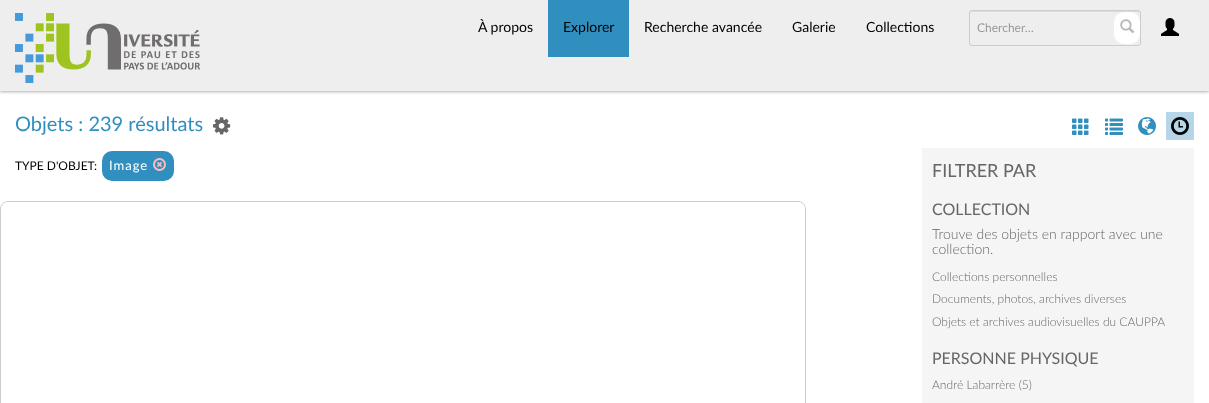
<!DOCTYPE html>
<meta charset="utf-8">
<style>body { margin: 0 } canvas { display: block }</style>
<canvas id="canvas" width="1209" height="403"></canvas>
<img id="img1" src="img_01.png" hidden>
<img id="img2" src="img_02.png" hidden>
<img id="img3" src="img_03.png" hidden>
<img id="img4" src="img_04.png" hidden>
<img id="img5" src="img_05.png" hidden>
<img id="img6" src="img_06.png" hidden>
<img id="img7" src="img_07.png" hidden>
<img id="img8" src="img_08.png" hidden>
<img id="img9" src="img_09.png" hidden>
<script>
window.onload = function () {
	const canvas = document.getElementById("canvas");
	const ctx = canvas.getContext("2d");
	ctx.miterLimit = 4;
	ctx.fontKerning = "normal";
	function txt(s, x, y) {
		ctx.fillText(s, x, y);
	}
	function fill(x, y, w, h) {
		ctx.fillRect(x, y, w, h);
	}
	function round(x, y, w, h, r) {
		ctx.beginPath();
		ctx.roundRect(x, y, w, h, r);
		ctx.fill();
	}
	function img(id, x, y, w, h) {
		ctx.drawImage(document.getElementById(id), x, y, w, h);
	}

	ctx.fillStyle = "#FFFFFF";
	fill(0, 0, 1209, 403);
	ctx.fillStyle = "rgba(0, 0, 0, 0.3)";
	ctx.filter = "blur(1.5px)";
	ctx.beginPath();
	ctx.rect(0, 1, 1209, 91);
	ctx.fill();
	ctx.filter = "none";
	ctx.fillStyle = "#EEEEEE";
	fill(0, 0, 1209, 91);
	img("img1", 15, 13, 185, 70);
	ctx.fillStyle = "#318FBF";
	fill(548, 0, 81, 57);
	ctx.fillStyle = "#DCDCDC";
	ctx.beginPath();
	ctx.moveTo(972, 12);
	ctx.lineTo(1138, 12);
	ctx.bezierCurveTo(1139, 12, 1140, 13, 1140, 14);
	ctx.bezierCurveTo(1140, 13, 1140, 11, 1138, 11);
	ctx.lineTo(972, 11);
	ctx.bezierCurveTo(970, 11, 970, 13, 970, 14);
	ctx.bezierCurveTo(970, 13, 971, 12, 972, 12);
	ctx.closePath();
	ctx.fill();
	ctx.beginPath();
	ctx.roundRect(969.5, 10.5, 171, 35, 2.5);
	ctx.strokeStyle = "#CCCCCC";
	ctx.stroke();
	ctx.fillStyle = "#FFFFFF";
	round(1114, 12, 26, 32, 10);
	img("img2", 1120, 19, 15, 15);
	img("img3", 1161, 18, 18, 18);
	img("img4", 213, 117, 18, 18);
	ctx.fillStyle = "#318FBF";
	round(102, 151, 72, 30, 10);
	img("img5", 153, 158, 13, 13);
	ctx.beginPath();
	ctx.roundRect(0.5, 201.5, 805, 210, 7.5);
	ctx.stroke();
	ctx.fillStyle = "rgba(255, 255, 255, 0.8)";
	round(1, 202, 804, 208, 7);
	img("img6", 1072, 118, 17, 17);
	img("img7", 1105, 118, 18, 17);
	img("img8", 1138, 117, 18, 18);
	ctx.fillStyle = "#B4D6E8";
	fill(1166, 112, 28, 28);
	img("img9", 1171, 117, 18, 18);
	ctx.fillStyle = "#F5F5F5";
	fill(922, 148, 272, 255);
	ctx.font = "14px Lato";
	ctx.fillStyle = "#000000";
	txt("À propos", 478, 32);
	txt("Explorer", 563, 32);
	txt("Recherche avancée", 644, 32);
	txt("Galerie", 792, 32);
	txt("Collections", 866, 32);
	ctx.font = "12px Lato";
	ctx.fillStyle = "#999999";
	txt("Chercher…", 977, 32);
	ctx.font = "20px Lato";
	ctx.fillStyle = "#318FBF";
	txt("Objets : 239 résultats", 15, 131);
	ctx.font = "12px Lato";
	ctx.fillStyle = "#000000";
	txt("TYPE D'OBJET:", 15, 170);
	ctx.letterSpacing = "1px";
	ctx.font = "13px Lato";
	ctx.fillStyle = "#FFFFFF";
	txt("Image", 109, 170);
	ctx.letterSpacing = "0px";
	ctx.font = "18px Lato";
	ctx.fillStyle = "#666666";
	txt("FILTRER PAR", 932, 177);
	ctx.font = "16px Lato";
	txt("COLLECTION", 932, 215);
	ctx.font = "300 14px Lato";
	txt("Trouve des objets en rapport avec une", 932, 239);
	txt("collection.", 932, 254);
	ctx.font = "300 12px Lato";
	txt("Collections personnelles", 932, 281);
	txt("Documents, photos, archives diverses", 932, 303);
	txt("Objets et archives audiovisuelles du CAUPPA", 932, 326);
	ctx.font = "16px Lato";
	txt("PERSONNE PHYSIQUE", 932, 364);
	ctx.font = "300 12px Lato";
	txt("André Labarrère (5)", 932, 389);
};
</script>
